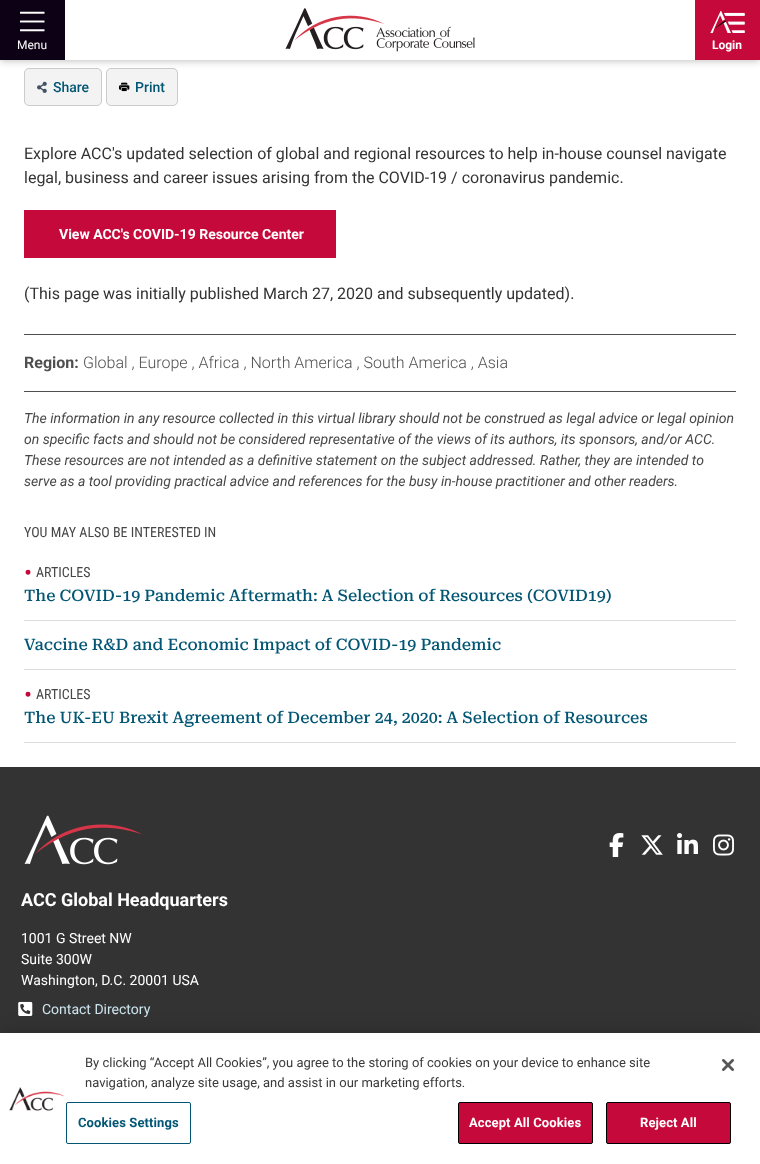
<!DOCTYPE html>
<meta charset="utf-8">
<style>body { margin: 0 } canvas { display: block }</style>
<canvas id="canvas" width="760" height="1164"></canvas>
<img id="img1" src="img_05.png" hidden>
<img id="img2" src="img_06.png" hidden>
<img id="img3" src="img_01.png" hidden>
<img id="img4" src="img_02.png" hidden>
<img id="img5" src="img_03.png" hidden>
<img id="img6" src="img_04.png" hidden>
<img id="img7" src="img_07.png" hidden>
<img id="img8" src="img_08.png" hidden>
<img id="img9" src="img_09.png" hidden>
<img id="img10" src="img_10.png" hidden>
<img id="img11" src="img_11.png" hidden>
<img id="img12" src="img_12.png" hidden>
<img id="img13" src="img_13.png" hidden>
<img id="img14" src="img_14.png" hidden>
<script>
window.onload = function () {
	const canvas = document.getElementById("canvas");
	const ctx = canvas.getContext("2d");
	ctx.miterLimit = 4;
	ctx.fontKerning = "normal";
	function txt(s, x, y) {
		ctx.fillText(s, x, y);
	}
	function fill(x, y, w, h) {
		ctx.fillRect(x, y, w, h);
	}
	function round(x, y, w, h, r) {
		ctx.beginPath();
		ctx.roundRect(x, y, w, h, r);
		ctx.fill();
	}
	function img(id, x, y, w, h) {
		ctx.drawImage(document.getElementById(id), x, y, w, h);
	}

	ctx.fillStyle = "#FFFFFF";
	fill(0, 0, 760, 1164);
	ctx.fillStyle = "#F3F3F3";
	round(24, 68, 78, 38, 5);
	img("img1", 37, 81, 10, 12);
	ctx.beginPath();
	ctx.roundRect(24.5, 68.5, 77, 37, 4.5);
	ctx.strokeStyle = "#CCCCCC";
	ctx.stroke();
	round(106, 68, 72, 38, 5);
	img("img2", 119, 82, 11, 10);
	ctx.beginPath();
	ctx.roundRect(106.5, 68.5, 71, 37, 4.5);
	ctx.stroke();
	ctx.fillStyle = "rgba(0, 0, 0, 0.3)";
	ctx.filter = "blur(4px)";
	ctx.beginPath();
	ctx.rect(0, 0, 760, 60);
	ctx.fill();
	ctx.filter = "none";
	ctx.fillStyle = "#FFFFFF";
	fill(65, 0, 630, 60);
	ctx.fillStyle = "#0D0116";
	fill(0, 0, 65, 60);
	img("img3", 20, 11, 25, 21);
	img("img4", 285, 8, 99, 42);
	img("img5", 376, 26, 99, 26);
	ctx.fillStyle = "#C6093B";
	fill(695, 0, 65, 60);
	img("img6", 710, 11, 35, 22);
	fill(24, 210, 312, 48);
	ctx.fillStyle = "#504F4F";
	fill(24, 334, 712, 1);
	fill(24, 391, 712, 1);
	ctx.fillStyle = "#DDDDDD";
	fill(24, 620, 712, 1);
	fill(24, 669, 712, 1);
	fill(24, 742, 712, 1);
	ctx.fillStyle = "#333333";
	fill(0, 767, 760, 266);
	img("img7", 24, 815, 118, 50);
	img("img8", 609, 833, 15, 24);
	img("img9", 641, 835, 22, 20);
	img("img10", 677, 833, 21, 21);
	img("img11", 713, 834, 21, 22);
	img("img12", 18, 1001, 15, 15);
	ctx.fillStyle = "rgba(0, 0, 0, 0.2)";
	ctx.filter = "blur(9px)";
	ctx.beginPath();
	ctx.rect(0, 1033, 760, 131);
	ctx.fill();
	ctx.filter = "none";
	ctx.fillStyle = "#FFFFFF";
	fill(0, 1033, 760, 131);
	img("img13", 9, 1087, 55, 24);
	ctx.beginPath();
	ctx.roundRect(66.5, 1102.5, 124, 41, 1.5);
	ctx.strokeStyle = "#025674";
	ctx.stroke();
	ctx.fillStyle = "#C6093B";
	ctx.beginPath();
	ctx.roundRect(458.5, 1102.5, 134, 41, 1.5);
	ctx.fill();
	ctx.strokeStyle = "#000000";
	ctx.stroke();
	ctx.beginPath();
	ctx.roundRect(606.5, 1102.5, 124, 41, 1.5);
	ctx.fill();
	ctx.stroke();
	img("img14", 722, 1059, 12, 12);
	ctx.font = "12px Roboto";
	ctx.fillStyle = "#FFFFFF";
	txt("Menu", 17, 49);
	ctx.font = "bold 12px Roboto";
	txt("Login", 712, 49);
	ctx.font = "500 14px Roboto";
	ctx.fillStyle = "#025674";
	txt("Share", 53, 92);
	txt("Print", 135, 92);
	ctx.font = "16px Roboto";
	ctx.fillStyle = "#333333";
	txt("Explore ACC's updated selection of global and regional resources to help in-house counsel navigate", 24, 159);
	txt("legal, business and career issues arising from the COVID-19 / coronavirus pandemic.", 24, 183);
	ctx.font = "bold 14px Roboto";
	ctx.fillStyle = "#FFFFFF";
	txt("View ACC's COVID-19 Resource Center", 59, 239);
	ctx.font = "16px Roboto";
	ctx.fillStyle = "#333333";
	txt("(This page was initially published March 27, 2020 and subsequently updated).", 24, 299);
	ctx.font = "bold 16px Roboto";
	ctx.fillStyle = "#504F4F";
	txt("Region:", 24, 368);
	ctx.font = "300 16px Roboto";
	txt("Global , Europe , Africa , North America , South America , Asia", 83, 368);
	ctx.font = "italic 14px Roboto";
	ctx.fillStyle = "#474747";
	txt("The information in any resource collected in this virtual library should not be construed as legal advice or legal opinion", 24, 423);
	txt("on specific facts and should not be considered representative of the views of its authors, its sponsors, and/or ACC.", 24, 444);
	txt("These resources are not intended as a definitive statement on the subject addressed. Rather, they are intended to", 24, 465);
	txt("serve as a tool providing practical advice and references for the busy in-house practitioner and other readers.", 24, 486);
	ctx.font = "14px Roboto Condensed";
	txt("YOU MAY ALSO BE INTERESTED IN", 24, 537);
	ctx.font = "24px Roboto Condensed";
	ctx.fillStyle = "#C6093B";
	txt("•", 24, 581);
	ctx.font = "14px Roboto Condensed";
	ctx.fillStyle = "#474747";
	txt("ARTICLES", 36, 577);
	ctx.font = "500 16px Roboto Serif";
	ctx.fillStyle = "#025674";
	txt("The COVID-19 Pandemic Aftermath: A Selection of Resources (COVID19)", 24, 601);
	txt("Vaccine R&D and Economic Impact of COVID-19 Pandemic", 24, 650);
	ctx.font = "24px Roboto Condensed";
	ctx.fillStyle = "#C6093B";
	txt("•", 24, 703);
	ctx.font = "14px Roboto Condensed";
	ctx.fillStyle = "#474747";
	txt("ARTICLES", 36, 699);
	ctx.font = "500 16px Roboto Serif";
	ctx.fillStyle = "#025674";
	txt("The UK-EU Brexit Agreement of December 24, 2020: A Selection of Resources", 24, 723);
	ctx.font = "bold 18px Roboto";
	ctx.fillStyle = "#FFFFFF";
	txt("ACC Global Headquarters", 21, 906);
	ctx.font = "14px Roboto";
	txt("1001 G Street NW", 21, 943);
	txt("Suite 300W", 21, 964);
	txt("Washington, D.C. 20001 USA", 21, 985);
	ctx.fillStyle = "#CCE4ED";
	txt("Contact Directory", 42, 1014);
	ctx.font = "13px Roboto";
	ctx.fillStyle = "#3A3A3A";
	txt("By clicking “Accept All Cookies”, you agree to the storing of cookies on your device to enhance site", 85, 1067);
	txt("navigation, analyze site usage, and assist in our marketing efforts.", 85, 1087);
	ctx.letterSpacing = "0.1px";
	ctx.font = "bold 13px Roboto";
	ctx.fillStyle = "#025674";
	txt("Cookies Settings", 78, 1127);
	ctx.fillStyle = "#FFFFFF";
	txt("Accept All Cookies", 469, 1127);
	txt("Reject All", 640, 1127);
};
</script>
